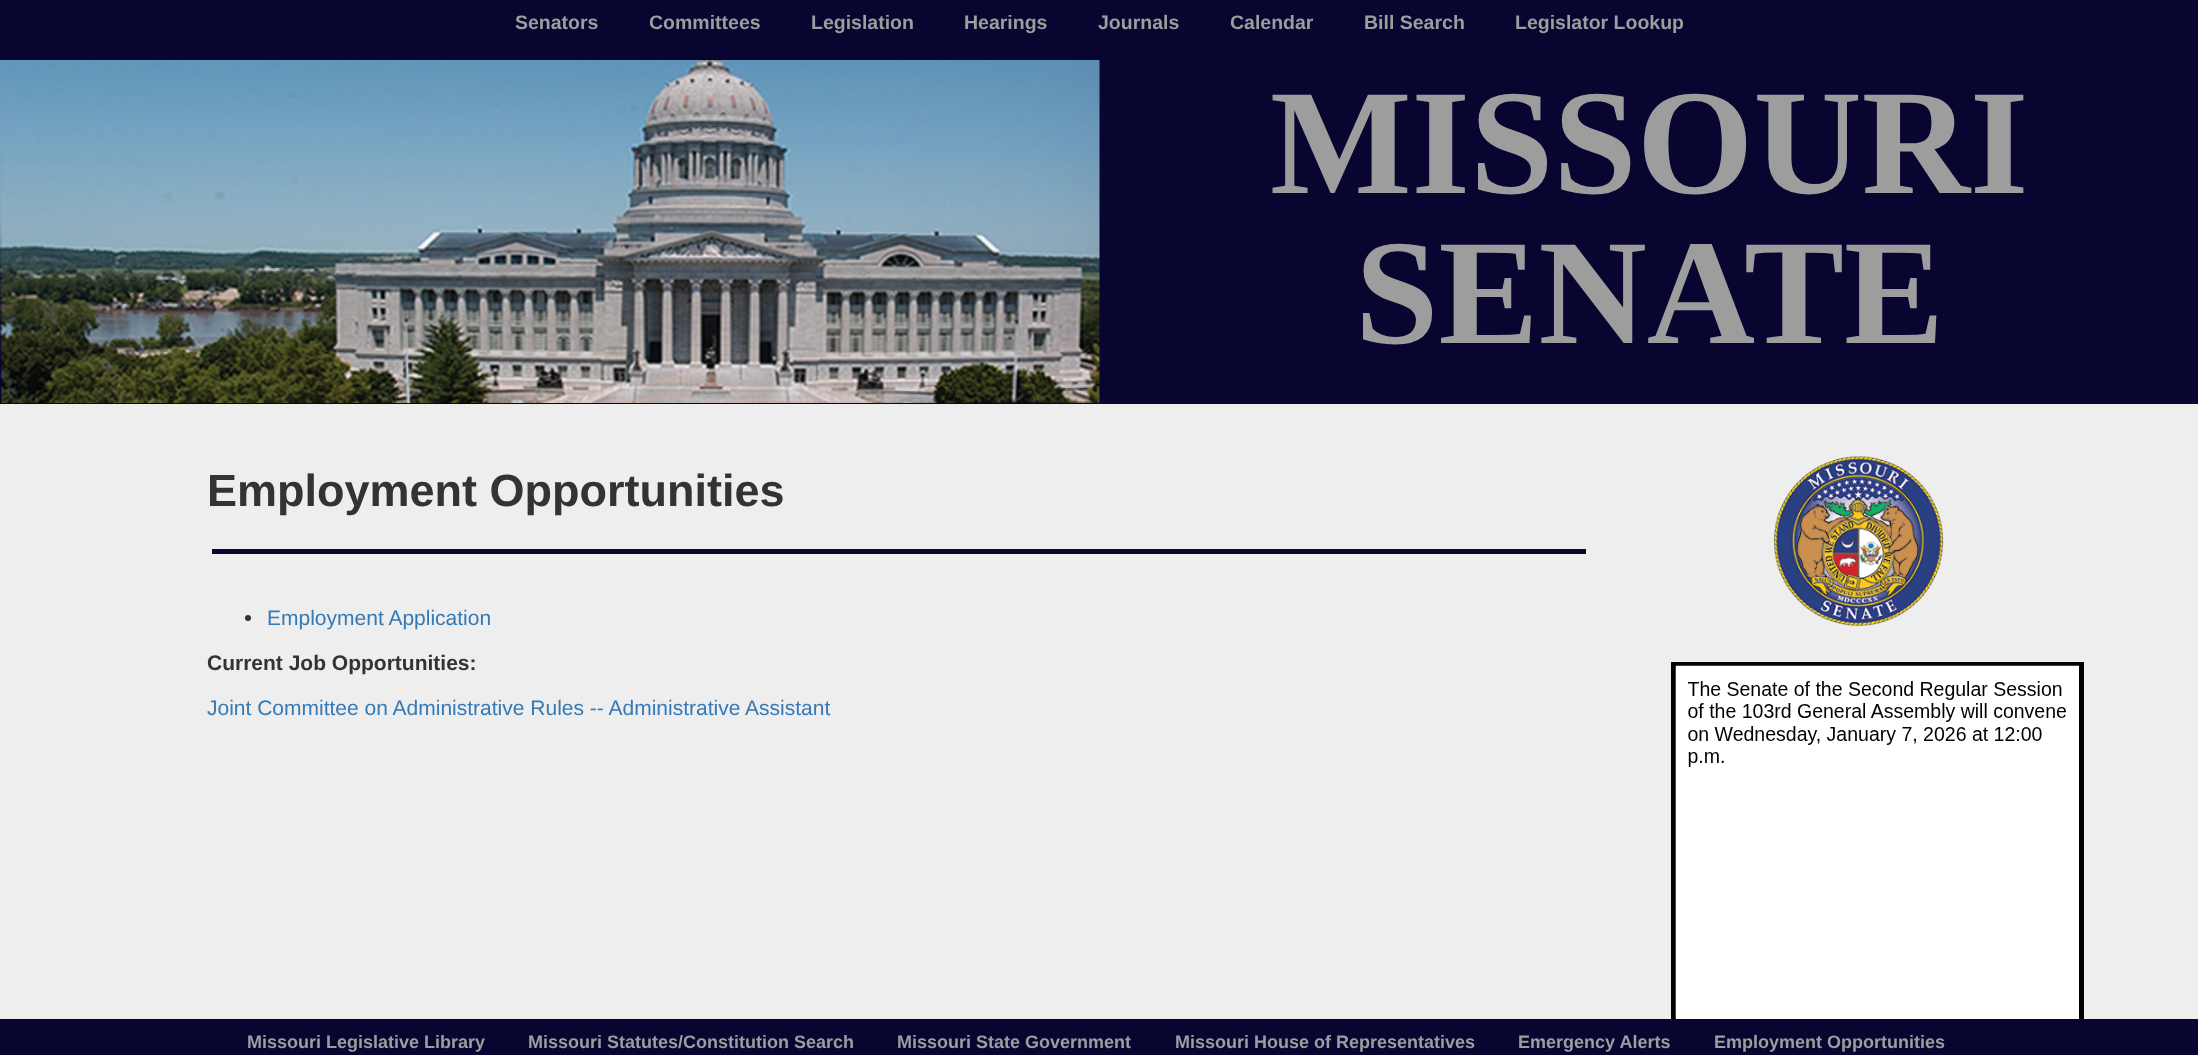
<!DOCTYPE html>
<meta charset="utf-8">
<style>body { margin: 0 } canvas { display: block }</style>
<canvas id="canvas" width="2198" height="1055"></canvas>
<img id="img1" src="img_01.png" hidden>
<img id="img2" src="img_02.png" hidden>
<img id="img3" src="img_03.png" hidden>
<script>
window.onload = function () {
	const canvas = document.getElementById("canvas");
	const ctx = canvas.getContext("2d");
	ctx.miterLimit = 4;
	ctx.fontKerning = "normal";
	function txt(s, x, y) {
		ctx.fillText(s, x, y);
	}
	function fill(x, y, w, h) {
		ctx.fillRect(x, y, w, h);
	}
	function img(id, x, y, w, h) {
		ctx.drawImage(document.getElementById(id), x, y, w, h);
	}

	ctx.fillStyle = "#EEEEEE";
	fill(0, 0, 2198, 1055);
	ctx.fillStyle = "#080530";
	fill(0, 0, 2198, 404);
	img("img1", 0, 60, 1100, 343);
	fill(212, 549, 1374, 5);
	ctx.fillStyle = "#333333";
	ctx.beginPath();
	ctx.arc(248, 618, 3, 0, Math.PI * 2);
	ctx.fill();
	img("img2", 1773, 456, 171, 171);
	ctx.strokeStyle = "#000000";
	ctx.lineWidth = 5;
	ctx.strokeRect(1673.5, 664.5, 408, 377);
	img("img3", 1675, 665, 404, 354);
	ctx.fillStyle = "#080530";
	fill(0, 1019, 2198, 36);
	ctx.font = "bold 19.5px Liberation Sans";
	ctx.fillStyle = "#9D9D9D";
	txt("Senators", 515, 29);
	txt("Committees", 649, 29);
	txt("Legislation", 811, 29);
	txt("Hearings", 964, 29);
	txt("Journals", 1098, 29);
	txt("Calendar", 1230, 29);
	txt("Bill Search", 1364, 29);
	txt("Legislator Lookup", 1515, 29);
	ctx.font = "bold 150px Liberation Serif";
	txt("MISSOURI", 1270, 193);
	txt("SENATE", 1355, 343);
	ctx.font = "bold 45px Liberation Sans";
	ctx.fillStyle = "#333333";
	txt("Employment Opportunities", 207, 506);
	ctx.font = "21px Liberation Sans";
	ctx.fillStyle = "#337AB7";
	txt("Employment Application", 267, 625);
	ctx.font = "bold 21px Liberation Sans";
	ctx.fillStyle = "#333333";
	txt("Current Job Opportunities:", 207, 670);
	ctx.font = "21px Liberation Sans";
	ctx.fillStyle = "#337AB7";
	txt("Joint Committee on Administrative Rules -- Administrative Assistant", 207, 715);
	ctx.font = "bold 18px Liberation Sans";
	ctx.fillStyle = "#9D9D9D";
	txt("Missouri Legislative Library", 247, 1048);
	txt("Missouri Statutes/Constitution Search", 528, 1048);
	txt("Missouri State Government", 897, 1048);
	txt("Missouri House of Representatives", 1175, 1048);
	txt("Emergency Alerts", 1518, 1048);
	txt("Employment Opportunities", 1714, 1048);
};
</script>
